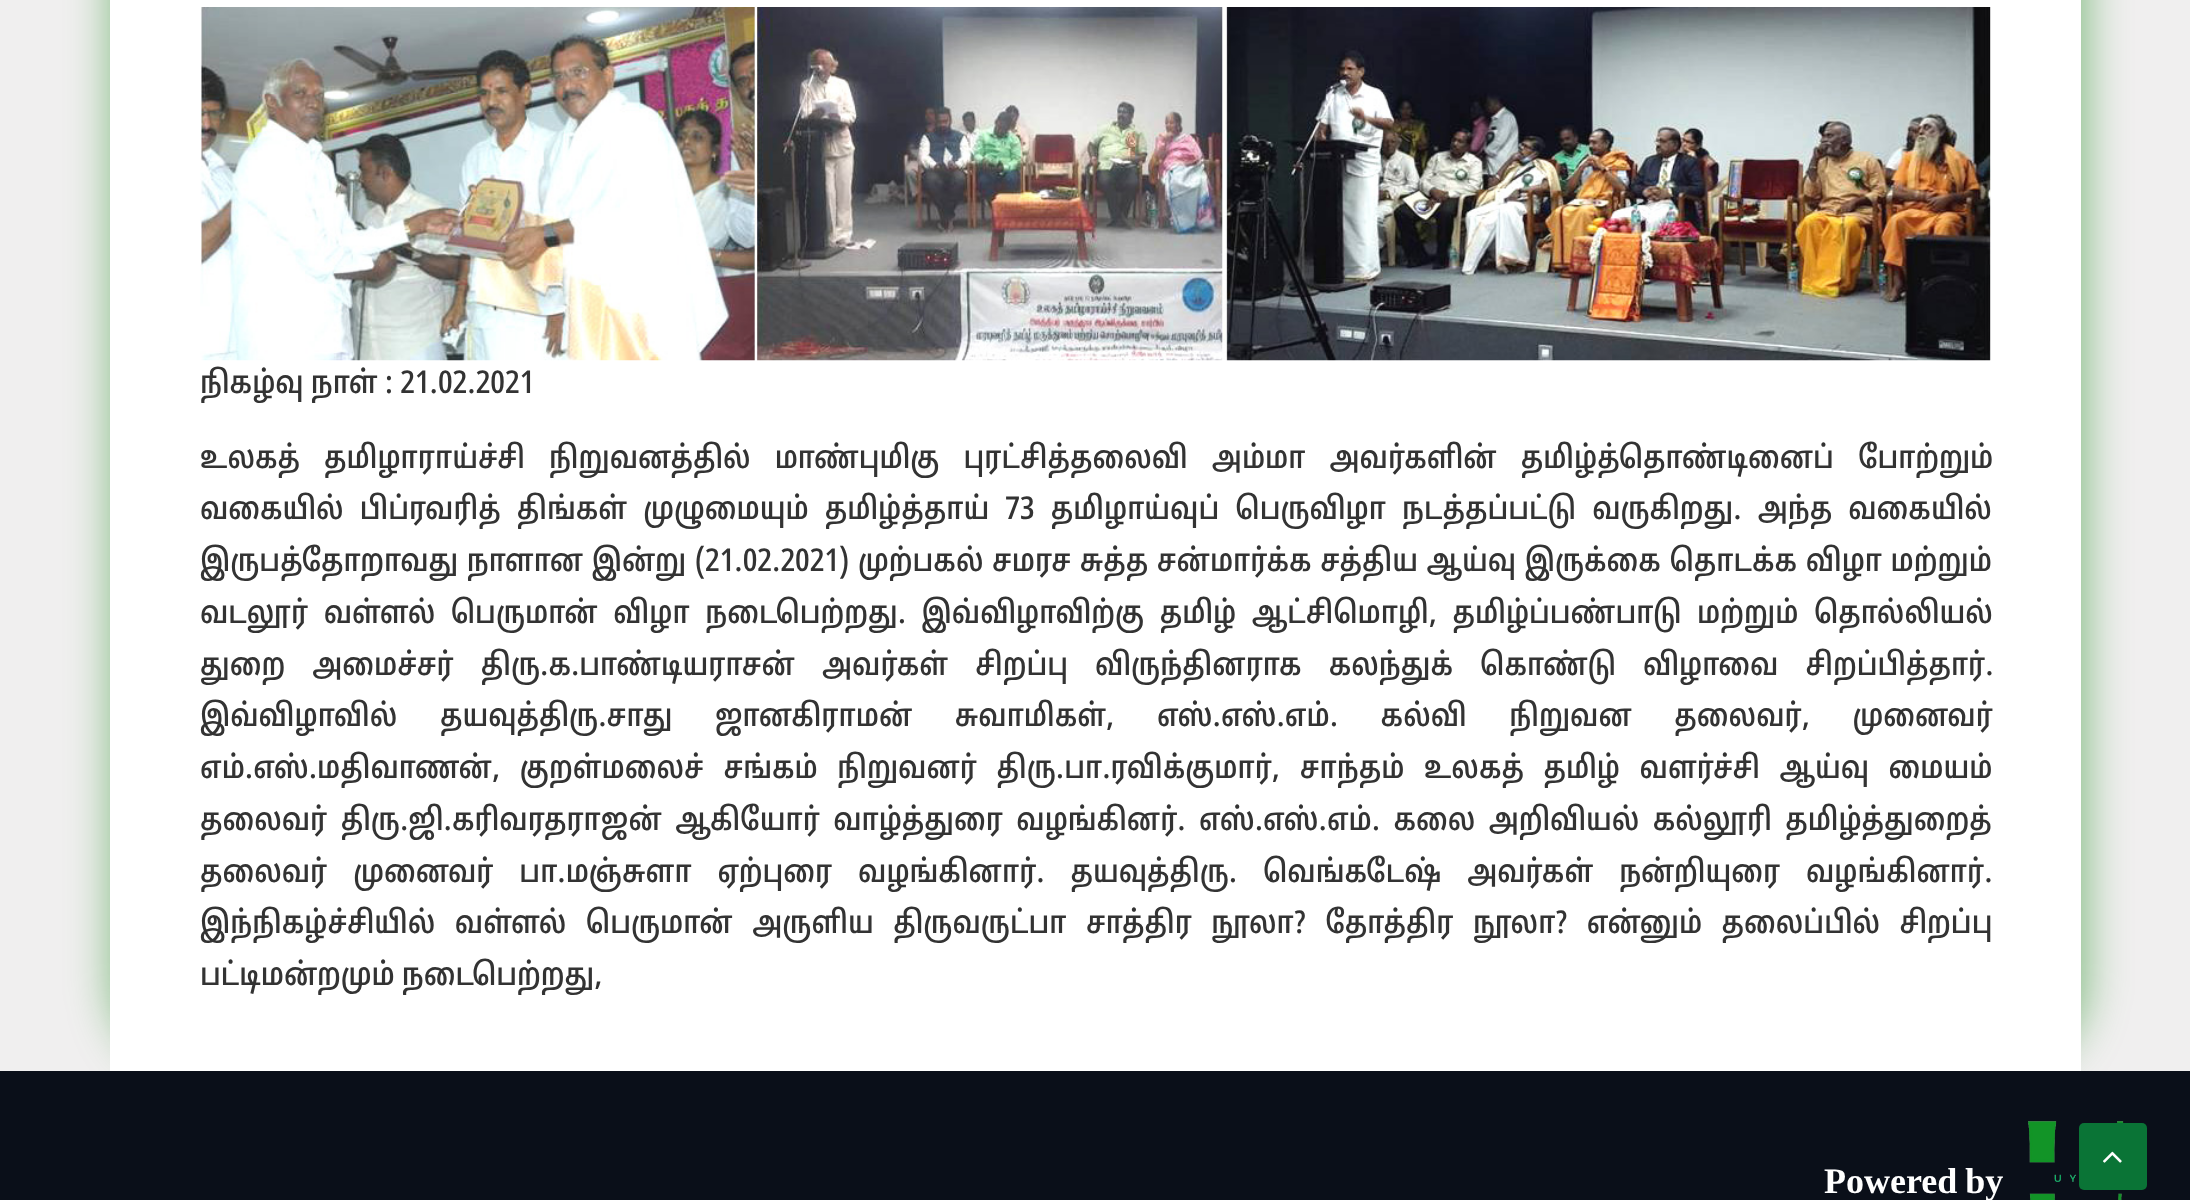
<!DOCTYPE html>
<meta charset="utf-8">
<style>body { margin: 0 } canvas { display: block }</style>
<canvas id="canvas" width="2190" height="1200"></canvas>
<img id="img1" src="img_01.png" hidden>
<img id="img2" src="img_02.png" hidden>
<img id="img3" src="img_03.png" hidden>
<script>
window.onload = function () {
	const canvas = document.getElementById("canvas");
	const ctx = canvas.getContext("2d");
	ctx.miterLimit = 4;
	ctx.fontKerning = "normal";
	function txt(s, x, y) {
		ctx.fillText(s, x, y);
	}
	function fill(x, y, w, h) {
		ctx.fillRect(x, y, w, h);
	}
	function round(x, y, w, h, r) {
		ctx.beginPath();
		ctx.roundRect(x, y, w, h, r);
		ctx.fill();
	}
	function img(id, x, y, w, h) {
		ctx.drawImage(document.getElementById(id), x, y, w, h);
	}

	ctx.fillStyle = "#F0EFEF";
	fill(0, 0, 2190, 1200);
	ctx.fillStyle = "rgba(0, 128, 0, 0.5)";
	ctx.filter = "blur(22.5px)";
	ctx.beginPath();
	ctx.roundRect(113, -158, 1971, 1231, 90);
	ctx.fill();
	ctx.filter = "none";
	ctx.fillStyle = "#FFFFFF";
	fill(110, 0, 1971, 1071);
	img("img1", 200, 7, 1791, 354);
	ctx.fillStyle = "#0A0F19";
	fill(0, 1071, 2190, 129);
	img("img2", 2028, 1121, 96, 79);
	ctx.fillStyle = "#0A7436";
	round(2079, 1123, 68, 67, 5);
	img("img3", 2103, 1151, 19, 12);
	ctx.font = "500 31.5px Noto Sans Tamil";
	ctx.fillStyle = "#333333";
	txt("நிகழ்வு நாள் : 21.02.2021", 200, 393);
	ctx.wordSpacing = "17px";
	txt("உலகத் தமிழாராய்ச்சி நிறுவனத்தில் மாண்புமிகு புரட்சித்தலைவி அம்மா அவர்களின் தமிழ்த்தொண்டினைப் போற்றும்", 200, 468);
	ctx.wordSpacing = "9px";
	txt("வகையில் பிப்ரவரித் திங்கள் முழுமையும் தமிழ்த்தாய் 73 தமிழாய்வுப் பெருவிழா நடத்தப்பட்டு வருகிறது. அந்த வகையில்", 200, 519);
	ctx.wordSpacing = "1.5px";
	txt("இருபத்தோறாவது நாளான இன்று (21.02.2021) முற்பகல் சமரச சுத்த சன்மார்க்க சத்திய ஆய்வு இருக்கை தொடக்க விழா மற்றும்", 200, 571);
	ctx.wordSpacing = "8.5px";
	txt("வடலூர் வள்ளல் பெருமான் விழா நடைபெற்றது. இவ்விழாவிற்கு தமிழ் ஆட்சிமொழி, தமிழ்ப்பண்பாடு மற்றும் தொல்லியல்", 200, 623);
	ctx.wordSpacing = "20px";
	txt("துறை அமைச்சர் திரு.க.பாண்டியராசன் அவர்கள் சிறப்பு விருந்தினராக கலந்துக் கொண்டு விழாவை சிறப்பித்தார்.", 200, 675);
	ctx.wordSpacing = "35.5px";
	txt("இவ்விழாவில் தயவுத்திரு.சாது ஜானகிராமன் சுவாமிகள், எஸ்.எஸ்.எம். கல்வி நிறுவன தலைவர், முனைவர்", 200, 726);
	ctx.wordSpacing = "12.5px";
	txt("எம்.எஸ்.மதிவாணன், குறள்மலைச் சங்கம் நிறுவனர் திரு.பா.ரவிக்குமார், சாந்தம் உலகத் தமிழ் வளர்ச்சி ஆய்வு மையம்", 200, 778);
	ctx.wordSpacing = "6.25px";
	txt("தலைவர் திரு.ஜி.கரிவரதராஜன் ஆகியோர் வாழ்த்துரை வழங்கினர். எஸ்.எஸ்.எம். கலை அறிவியல் கல்லூரி தமிழ்த்துறைத்", 200, 830);
	ctx.wordSpacing = "18.75px";
	txt("தலைவர் முனைவர் பா.மஞ்சுளா ஏற்புரை வழங்கினார். தயவுத்திரு. வெங்கடேஷ் அவர்கள் நன்றியுரை வழங்கினார்.", 200, 882);
	ctx.wordSpacing = "12.4px";
	txt("இந்நிகழ்ச்சியில் வள்ளல் பெருமான் அருளிய திருவருட்பா சாத்திர நூலா? தோத்திர நூலா? என்னும் தலைப்பில் சிறப்பு", 200, 933);
	ctx.wordSpacing = "0px";
	txt("பட்டிமன்றமும் நடைபெற்றது,", 200, 985);
	ctx.wordSpacing = "-1px";
	ctx.font = "bold 36px Liberation Serif";
	ctx.fillStyle = "#FFFFFF";
	txt("Powered by", 1824, 1193);
};
</script>
